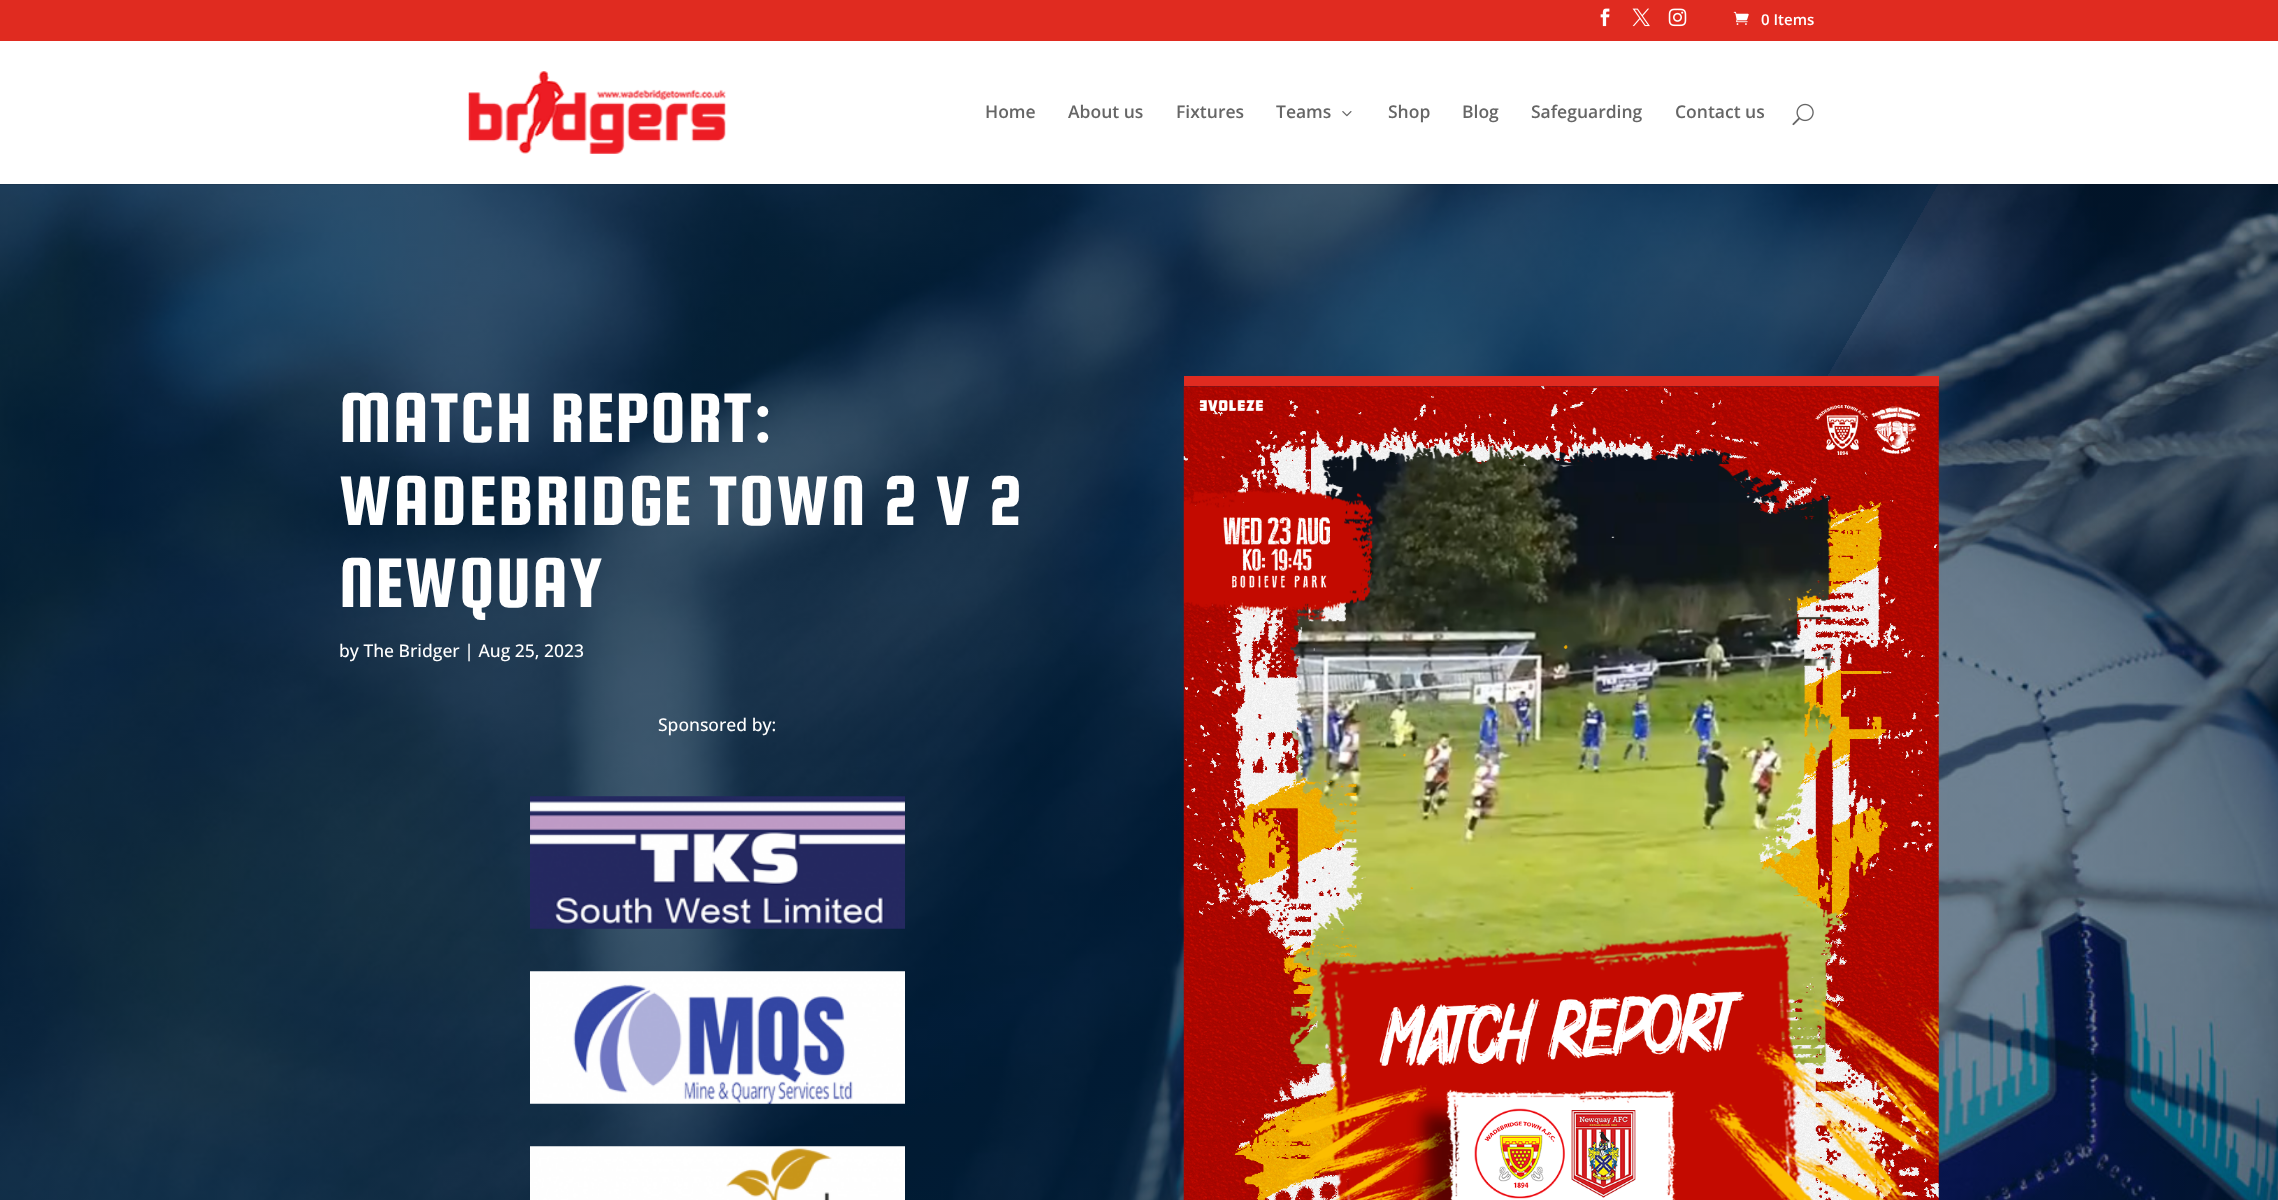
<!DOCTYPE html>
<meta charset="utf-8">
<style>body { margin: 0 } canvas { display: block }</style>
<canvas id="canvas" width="2278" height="1200"></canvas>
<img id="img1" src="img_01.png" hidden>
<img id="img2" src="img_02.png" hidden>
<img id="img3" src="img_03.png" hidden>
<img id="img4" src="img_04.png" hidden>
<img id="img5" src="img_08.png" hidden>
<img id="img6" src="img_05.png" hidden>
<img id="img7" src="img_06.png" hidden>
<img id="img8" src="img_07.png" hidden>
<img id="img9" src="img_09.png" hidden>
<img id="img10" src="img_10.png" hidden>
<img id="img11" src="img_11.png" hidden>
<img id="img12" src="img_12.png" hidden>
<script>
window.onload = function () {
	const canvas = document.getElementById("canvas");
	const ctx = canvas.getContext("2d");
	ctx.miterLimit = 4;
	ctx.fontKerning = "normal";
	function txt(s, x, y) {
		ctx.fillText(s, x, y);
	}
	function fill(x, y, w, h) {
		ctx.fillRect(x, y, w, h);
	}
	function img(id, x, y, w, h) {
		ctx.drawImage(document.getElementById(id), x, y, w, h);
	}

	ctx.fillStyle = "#FFFFFF";
	fill(0, 0, 2278, 1200);
	ctx.fillStyle = "#E02B20";
	fill(0, 0, 2278, 41);
	img("img1", 1600, 8, 10, 19);
	img("img2", 1632, 8, 18, 19);
	img("img3", 1668, 8, 19, 19);
	img("img4", 1733, 11, 16, 14);
	img("img5", 0, 184, 2278, 1016);
	ctx.fillStyle = "rgba(0, 0, 0, 0.1)";
	ctx.beginPath();
	ctx.moveTo(0, 184);
	ctx.lineTo(0, 185);
	ctx.lineTo(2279, 185);
	ctx.lineTo(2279, 43);
	ctx.lineTo(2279, 184);
	ctx.closePath();
	ctx.fill();
	img("img6", 468, 71, 258, 83);
	img("img7", 1342, 111, 10, 6);
	img("img8", 1792, 103, 22, 23);
	img("img9", 530, 796, 375, 133);
	img("img10", 530, 971, 375, 133);
	img("img11", 530, 1146, 375, 54);
	ctx.fillStyle = "#E02B20";
	fill(1184, 376, 755, 10);
	img("img12", 1183, 386, 756, 814);
	ctx.font = "600 15px Open Sans";
	ctx.fillStyle = "#FFFFFF";
	txt("0 Items", 1761, 25);
	ctx.font = "600 17.5px Open Sans";
	ctx.fillStyle = "#666666";
	txt("Home", 985, 118);
	txt("About us", 1068, 118);
	txt("Fixtures", 1176, 118);
	txt("Teams", 1276, 118);
	txt("Shop", 1388, 118);
	txt("Blog", 1462, 118);
	txt("Safeguarding", 1531, 118);
	txt("Contact us", 1675, 118);
	ctx.letterSpacing = "1.25px";
	ctx.font = "75px Squada One";
	ctx.fillStyle = "#FFFFFF";
	txt("MATCH REPORT:", 339, 442);
	txt("WADEBRIDGE TOWN 2 V 2", 339, 525);
	txt("NEWQUAY", 339, 607);
	ctx.letterSpacing = "0px";
	ctx.font = "500 17.5px Open Sans";
	txt("by The Bridger | Aug 25, 2023", 339, 657);
	txt("Sponsored by:", 658, 731);
};
</script>
